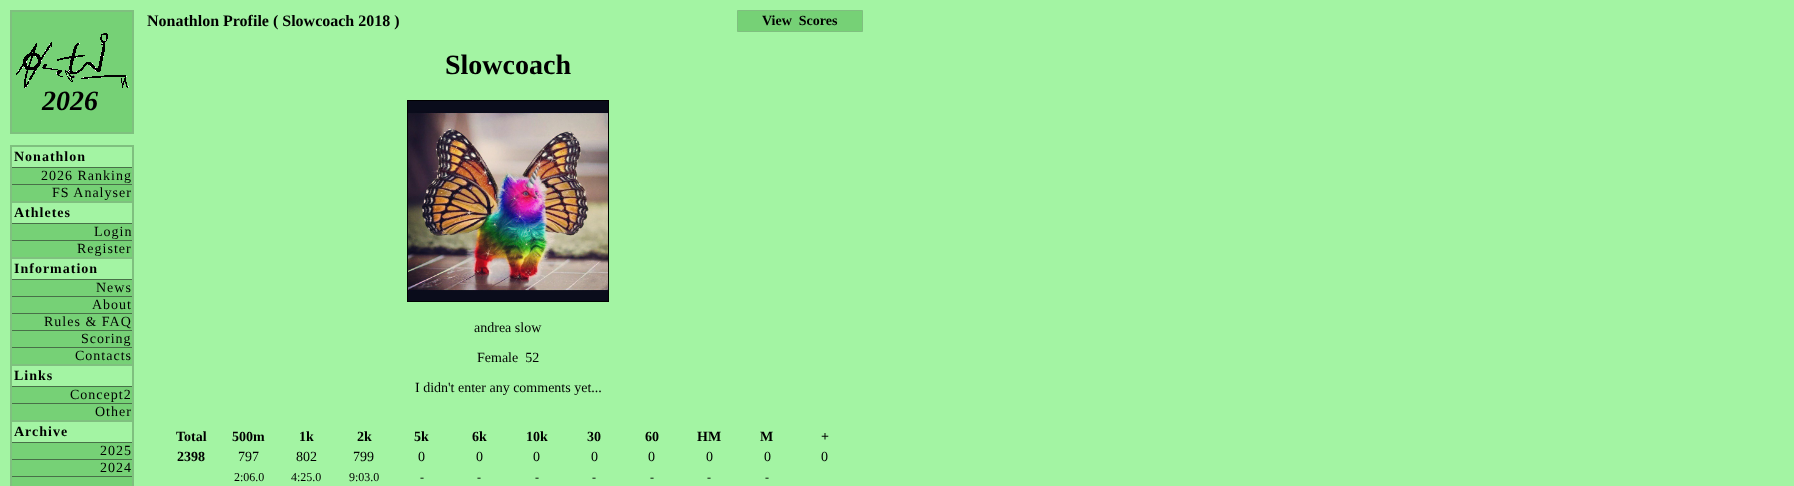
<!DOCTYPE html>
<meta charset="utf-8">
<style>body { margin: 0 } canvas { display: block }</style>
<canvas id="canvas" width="1794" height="486"></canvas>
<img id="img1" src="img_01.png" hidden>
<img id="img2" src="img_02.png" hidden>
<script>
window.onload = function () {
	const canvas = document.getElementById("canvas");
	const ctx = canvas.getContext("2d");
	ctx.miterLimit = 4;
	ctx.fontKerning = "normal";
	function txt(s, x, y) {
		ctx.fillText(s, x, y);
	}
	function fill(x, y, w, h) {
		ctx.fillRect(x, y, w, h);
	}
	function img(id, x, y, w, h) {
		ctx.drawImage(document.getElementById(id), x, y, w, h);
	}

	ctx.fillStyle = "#A3F4A3";
	fill(0, 0, 1794, 486);
	ctx.fillStyle = "#76D176";
	ctx.beginPath();
	ctx.rect(11, 11, 122, 122);
	ctx.fill();
	ctx.strokeStyle = "#7FC07F";
	ctx.lineWidth = 2;
	ctx.stroke();
	img("img1", 16, 33, 113, 55);
	ctx.strokeStyle = "#000000";
	ctx.lineWidth = 1;
	ctx.strokeRect(407.5, 100.5, 201, 201);
	img("img2", 408, 101, 200, 200);
	ctx.beginPath();
	ctx.rect(737.5, 10.5, 125, 21);
	ctx.fill();
	ctx.strokeStyle = "#7FC07F";
	ctx.stroke();
	ctx.fillStyle = "#7FC07F";
	fill(10, 145, 124, 2);
	fill(132, 145, 2, 56);
	fill(10, 145, 2, 56);
	ctx.fillStyle = "#76D176";
	fill(12, 168, 120, 16);
	ctx.fillStyle = "#487048";
	fill(12, 167, 120, 1);
	ctx.fillStyle = "#76D176";
	fill(12, 185, 120, 16);
	ctx.fillStyle = "#487048";
	fill(12, 184, 120, 1);
	ctx.fillStyle = "#7FC07F";
	fill(10, 201, 124, 2);
	fill(132, 201, 2, 56);
	fill(10, 201, 2, 56);
	ctx.fillStyle = "#76D176";
	fill(12, 224, 120, 16);
	ctx.fillStyle = "#487048";
	fill(12, 223, 120, 1);
	ctx.fillStyle = "#76D176";
	fill(12, 241, 120, 16);
	ctx.fillStyle = "#487048";
	fill(12, 240, 120, 1);
	ctx.fillStyle = "#7FC07F";
	fill(10, 257, 124, 2);
	fill(132, 257, 2, 107);
	fill(10, 257, 2, 107);
	ctx.fillStyle = "#76D176";
	fill(12, 280, 120, 16);
	ctx.fillStyle = "#487048";
	fill(12, 279, 120, 1);
	ctx.fillStyle = "#76D176";
	fill(12, 297, 120, 16);
	ctx.fillStyle = "#487048";
	fill(12, 296, 120, 1);
	ctx.fillStyle = "#76D176";
	fill(12, 314, 120, 16);
	ctx.fillStyle = "#487048";
	fill(12, 313, 120, 1);
	ctx.fillStyle = "#76D176";
	fill(12, 331, 120, 16);
	ctx.fillStyle = "#487048";
	fill(12, 330, 120, 1);
	ctx.fillStyle = "#76D176";
	fill(12, 348, 120, 16);
	ctx.fillStyle = "#487048";
	fill(12, 347, 120, 1);
	ctx.fillStyle = "#7FC07F";
	fill(10, 364, 124, 2);
	fill(132, 364, 2, 56);
	fill(10, 364, 2, 56);
	ctx.fillStyle = "#76D176";
	fill(12, 387, 120, 16);
	ctx.fillStyle = "#487048";
	fill(12, 386, 120, 1);
	ctx.fillStyle = "#76D176";
	fill(12, 404, 120, 16);
	ctx.fillStyle = "#487048";
	fill(12, 403, 120, 1);
	ctx.fillStyle = "#7FC07F";
	fill(10, 420, 124, 2);
	fill(132, 420, 2, 66);
	fill(10, 420, 2, 66);
	ctx.fillStyle = "#76D176";
	fill(12, 443, 120, 16);
	ctx.fillStyle = "#487048";
	fill(12, 442, 120, 1);
	ctx.fillStyle = "#76D176";
	fill(12, 460, 120, 16);
	ctx.fillStyle = "#487048";
	fill(12, 459, 120, 1);
	ctx.fillStyle = "#76D176";
	fill(12, 477, 120, 9);
	ctx.fillStyle = "#487048";
	fill(12, 476, 120, 1);
	ctx.font = "bold 16px Liberation Serif";
	ctx.fillStyle = "#000000";
	txt("Nonathlon Profile ( Slowcoach 2018 )", 147, 26);
	ctx.font = "bold 28px Liberation Serif";
	txt("Slowcoach", 445, 74);
	ctx.font = "14px Liberation Serif";
	txt("andrea slow", 474, 332);
	txt("Female  52", 477, 362);
	txt("I didn't enter any comments yet...", 415, 392);
	ctx.font = "bold 14px Liberation Serif";
	txt("Total", 176, 441);
	txt("500m", 232, 441);
	txt("1k", 299, 441);
	txt("2k", 357, 441);
	txt("5k", 414, 441);
	txt("6k", 472, 441);
	txt("10k", 526, 441);
	txt("30", 587, 441);
	txt("60", 645, 441);
	txt("HM", 697, 441);
	txt("M", 760, 441);
	txt("+", 821, 441);
	txt("2398", 177, 461);
	ctx.font = "14px Liberation Serif";
	txt("797", 238, 461);
	txt("802", 296, 461);
	txt("799", 353, 461);
	txt("0", 418, 461);
	txt("0", 476, 461);
	txt("0", 533, 461);
	txt("0", 591, 461);
	txt("0", 648, 461);
	txt("0", 706, 461);
	txt("0", 764, 461);
	txt("0", 821, 461);
	ctx.font = "12px Liberation Serif";
	txt("2:06.0", 234, 481);
	txt("4:25.0", 291, 481);
	txt("9:03.0", 349, 481);
	txt("-", 420, 481);
	txt("-", 477, 481);
	txt("-", 535, 481);
	txt("-", 592, 481);
	txt("-", 650, 481);
	txt("-", 707, 481);
	txt("-", 765, 481);
	ctx.font = "bold 14px Liberation Serif";
	txt("View  Scores", 762, 25);
	ctx.font = "italic bold 28px Liberation Serif";
	txt("2026", 42, 110);
	ctx.letterSpacing = "1px";
	ctx.font = "bold 14px Liberation Serif";
	txt("Nonathlon", 14, 161);
	ctx.font = "14px Liberation Serif";
	txt("2026 Ranking", 41, 180);
	txt("FS Analyser", 52, 197);
	ctx.font = "bold 14px Liberation Serif";
	txt("Athletes", 14, 217);
	ctx.font = "14px Liberation Serif";
	txt("Login", 94, 236);
	txt("Register", 77, 253);
	ctx.font = "bold 14px Liberation Serif";
	txt("Information", 14, 273);
	ctx.font = "14px Liberation Serif";
	txt("News", 96, 292);
	txt("About", 92, 309);
	txt("Rules & FAQ", 44, 326);
	txt("Scoring", 81, 343);
	txt("Contacts", 75, 360);
	ctx.font = "bold 14px Liberation Serif";
	txt("Links", 14, 380);
	ctx.font = "14px Liberation Serif";
	txt("Concept2", 70, 399);
	txt("Other", 95, 416);
	ctx.font = "bold 14px Liberation Serif";
	txt("Archive", 14, 436);
	ctx.font = "14px Liberation Serif";
	txt("2025", 100, 455);
	txt("2024", 100, 472);
};
</script>
